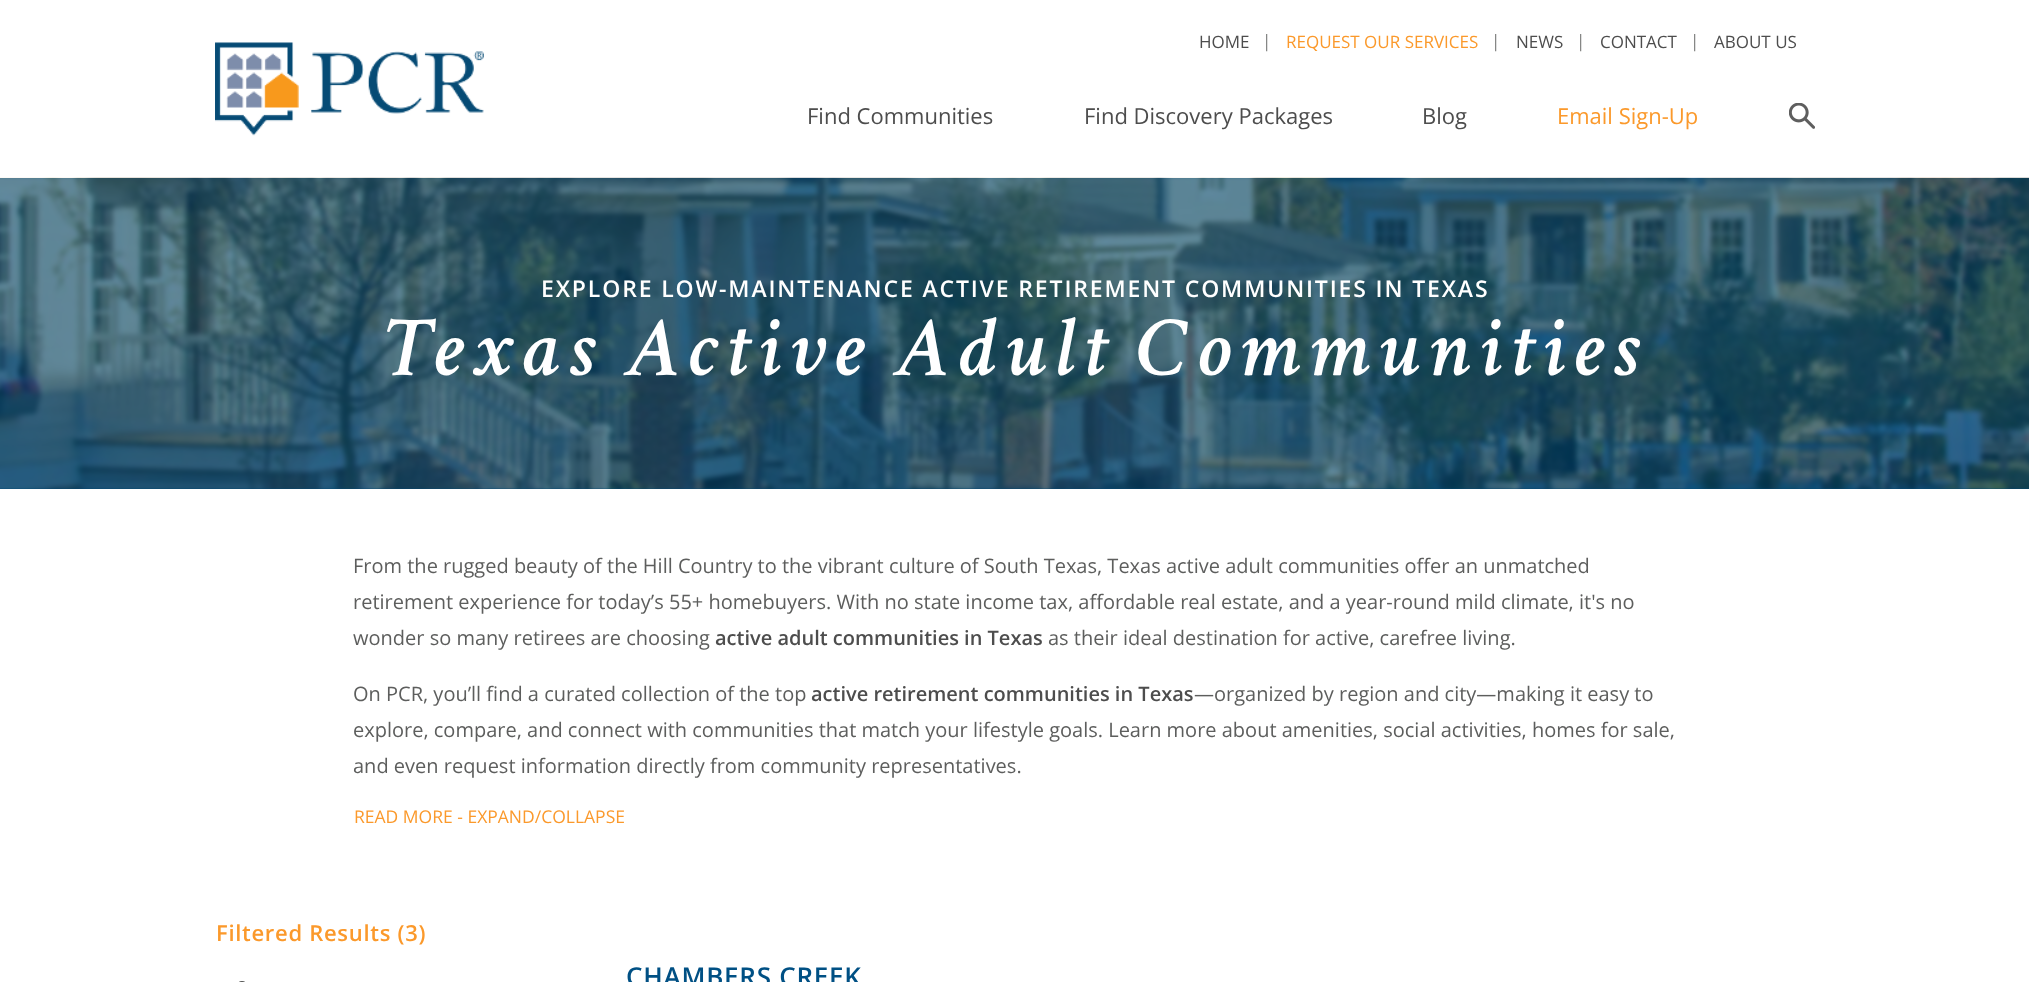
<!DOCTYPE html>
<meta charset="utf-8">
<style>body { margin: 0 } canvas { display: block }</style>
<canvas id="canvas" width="2029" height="982"></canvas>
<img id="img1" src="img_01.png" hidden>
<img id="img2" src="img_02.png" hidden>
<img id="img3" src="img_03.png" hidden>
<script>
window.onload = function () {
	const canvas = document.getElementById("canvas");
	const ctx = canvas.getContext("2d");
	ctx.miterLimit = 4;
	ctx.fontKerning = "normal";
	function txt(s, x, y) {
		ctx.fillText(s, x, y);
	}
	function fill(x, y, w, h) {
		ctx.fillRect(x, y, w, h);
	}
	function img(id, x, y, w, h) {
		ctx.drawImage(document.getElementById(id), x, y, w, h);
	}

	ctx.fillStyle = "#FFFFFF";
	fill(0, 0, 2029, 982);
	img("img1", 215, 42, 269, 94);
	img("img2", 1789, 103, 26, 26);
	ctx.fillStyle = "#004A74";
	fill(0, 178, 2029, 311);
	img("img3", 0, 177, 2029, 312);
	ctx.beginPath();
	ctx.roundRect(238.5, 981.5, 7, 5, 3.5);
	ctx.strokeStyle = "#5D5E5D";
	ctx.stroke();
	ctx.font = "17px Open Sans";
	ctx.fillStyle = "#4D4D4D";
	txt("HOME", 1199, 48);
	ctx.fillStyle = "#7D7E7D";
	txt("|", 1262, 47);
	ctx.fillStyle = "#FB992B";
	txt("REQUEST OUR SERVICES", 1286, 48);
	ctx.fillStyle = "#7D7E7D";
	txt("|", 1491, 47);
	ctx.fillStyle = "#4D4D4D";
	txt("NEWS", 1516, 48);
	ctx.fillStyle = "#7D7E7D";
	txt("|", 1576, 47);
	ctx.fillStyle = "#4D4D4D";
	txt("CONTACT", 1600, 48);
	ctx.fillStyle = "#7D7E7D";
	txt("|", 1690, 47);
	ctx.fillStyle = "#4D4D4D";
	txt("ABOUT US", 1714, 48);
	ctx.font = "22px Open Sans";
	txt("Find Communities", 807, 124);
	txt("Find Discovery Packages", 1084, 124);
	txt("Blog", 1422, 124);
	ctx.fillStyle = "#FB992B";
	txt("Email Sign-Up", 1557, 124);
	ctx.letterSpacing = "1.85px";
	ctx.font = "600 23px Open Sans";
	ctx.fillStyle = "#FFFFFF";
	txt("EXPLORE LOW-MAINTENANCE ACTIVE RETIREMENT COMMUNITIES IN TEXAS", 541, 297);
	ctx.letterSpacing = "8.6px";
	ctx.font = "italic 600 86px Crimson Text";
	txt("Texas Active Adult Communities", 382, 375);
	ctx.letterSpacing = "0px";
	ctx.font = "20px Open Sans";
	ctx.fillStyle = "#5D5E5D";
	txt("From the rugged beauty of the Hill Country to the vibrant culture of South Texas, Texas active adult communities offer an unmatched", 353, 573);
	txt("retirement experience for today’s 55+ homebuyers. With no state income tax, affordable real estate, and a year-round mild climate, it's no", 353, 609);
	txt("wonder so many retirees are choosing", 353, 645);
	ctx.font = "600 20px Open Sans";
	ctx.fillStyle = "#4D4D4D";
	txt("active adult communities in Texas", 715, 645);
	ctx.font = "20px Open Sans";
	ctx.fillStyle = "#5D5E5D";
	txt("as their ideal destination for active, carefree living.", 1048, 645);
	txt("On PCR, you’ll find a curated collection of the top", 353, 701);
	ctx.font = "600 20px Open Sans";
	ctx.fillStyle = "#4D4D4D";
	txt("active retirement communities in Texas", 811, 701);
	ctx.font = "20px Open Sans";
	ctx.fillStyle = "#5D5E5D";
	txt("—organized by region and city—making it easy to", 1194, 701);
	txt("explore, compare, and connect with communities that match your lifestyle goals. Learn more about amenities, social activities, homes for sale,", 353, 737);
	txt("and even request information directly from community representatives.", 353, 773);
	ctx.font = "17.5px Open Sans";
	ctx.fillStyle = "#FB992B";
	txt("READ MORE - EXPAND/COLLAPSE", 354, 823);
	ctx.letterSpacing = "0.7px";
	ctx.font = "600 22px Open Sans";
	txt("Filtered Results (3)", 216, 941);
	ctx.letterSpacing = "0.75px";
	ctx.font = "600 26px Open Sans";
	ctx.fillStyle = "#005084";
	txt("CHAMBERS CREEK", 626, 986);
};
</script>
